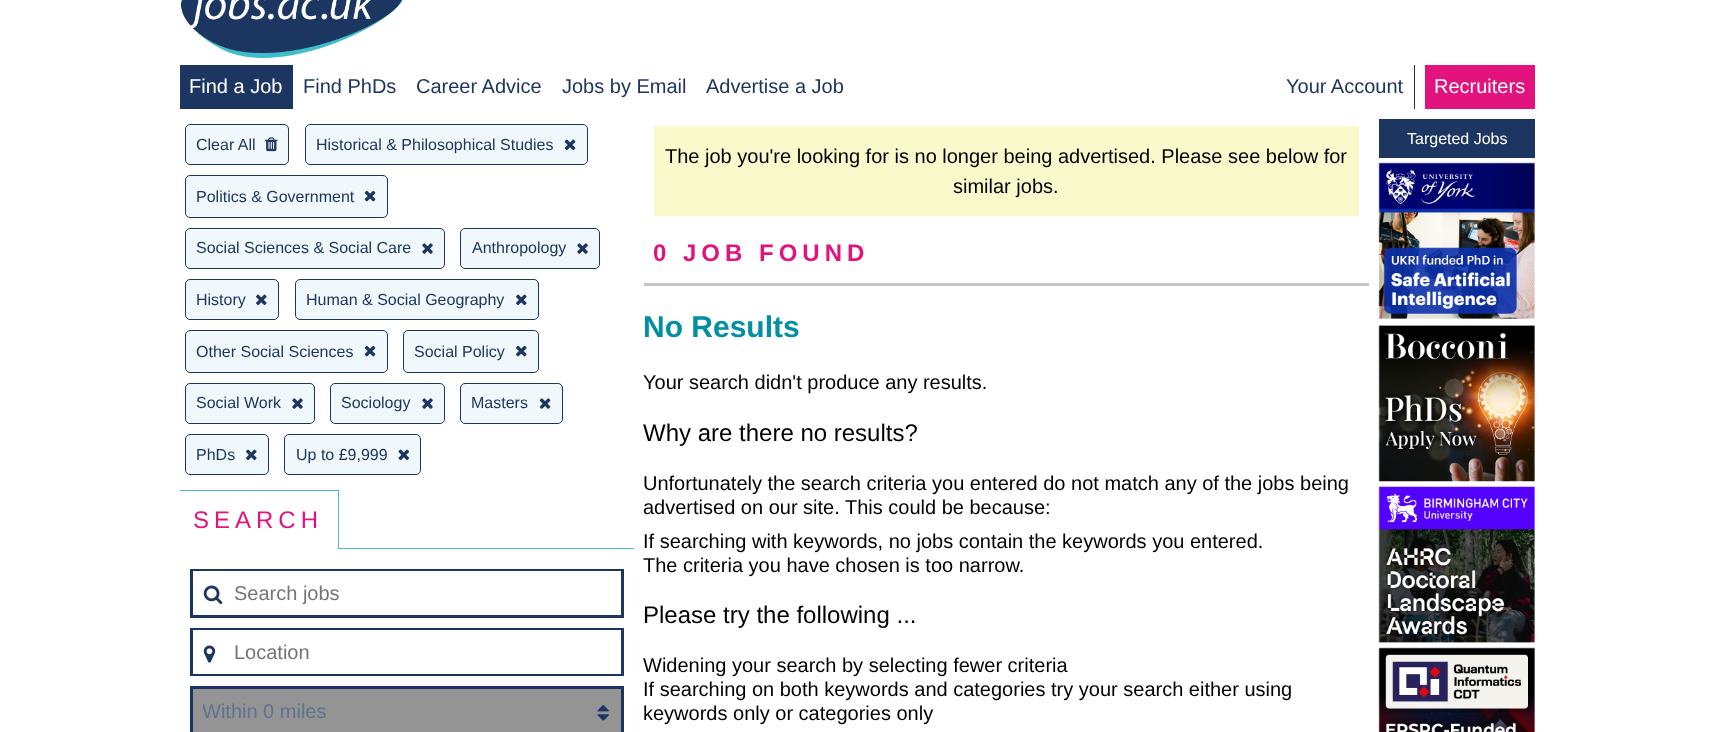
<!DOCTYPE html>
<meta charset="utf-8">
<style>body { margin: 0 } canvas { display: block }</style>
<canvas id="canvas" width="1715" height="732"></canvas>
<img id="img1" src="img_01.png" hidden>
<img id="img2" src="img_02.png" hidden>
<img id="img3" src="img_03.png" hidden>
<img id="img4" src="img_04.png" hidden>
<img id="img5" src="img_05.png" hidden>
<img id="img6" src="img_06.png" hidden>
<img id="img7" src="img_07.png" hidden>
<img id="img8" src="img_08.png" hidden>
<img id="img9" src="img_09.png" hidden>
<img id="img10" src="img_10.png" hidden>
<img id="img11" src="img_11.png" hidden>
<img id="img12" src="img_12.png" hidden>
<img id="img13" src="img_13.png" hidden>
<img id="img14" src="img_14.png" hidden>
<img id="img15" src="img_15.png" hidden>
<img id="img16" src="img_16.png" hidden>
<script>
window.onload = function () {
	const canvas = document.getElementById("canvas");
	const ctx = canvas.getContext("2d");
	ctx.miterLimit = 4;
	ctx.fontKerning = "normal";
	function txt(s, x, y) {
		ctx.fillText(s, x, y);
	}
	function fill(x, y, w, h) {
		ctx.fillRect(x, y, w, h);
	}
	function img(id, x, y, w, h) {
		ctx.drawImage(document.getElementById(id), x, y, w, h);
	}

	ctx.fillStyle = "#FFFFFF";
	fill(0, 0, 1715, 732);
	img("img1", 181, 0, 222, 58);
	ctx.fillStyle = "#1D3661";
	fill(180, 65, 113, 44);
	fill(1414, 65, 1, 44);
	ctx.fillStyle = "#E3137E";
	fill(1425, 65, 110, 44);
	ctx.fillStyle = "#F1F8FB";
	ctx.beginPath();
	ctx.roundRect(185.5, 124.5, 103, 40, 4.5);
	ctx.fill();
	ctx.strokeStyle = "#1D3661";
	ctx.stroke();
	img("img2", 265, 137, 13, 15);
	ctx.beginPath();
	ctx.roundRect(305.5, 124.5, 282, 40, 4.5);
	ctx.fill();
	ctx.stroke();
	img("img3", 564, 139, 12, 12);
	ctx.beginPath();
	ctx.roundRect(185.5, 175.5, 202, 42, 4.5);
	ctx.fill();
	ctx.stroke();
	img("img4", 364, 190, 12, 12);
	ctx.beginPath();
	ctx.roundRect(185.5, 228.5, 259, 40, 4.5);
	ctx.fill();
	ctx.stroke();
	img("img5", 422, 243, 11, 11);
	ctx.beginPath();
	ctx.roundRect(460.5, 228.5, 139, 40, 4.5);
	ctx.fill();
	ctx.stroke();
	img("img5", 577, 243, 11, 11);
	ctx.beginPath();
	ctx.roundRect(185.5, 279.5, 93, 40, 4.5);
	ctx.fill();
	ctx.stroke();
	img("img6", 256, 294, 11, 12);
	ctx.beginPath();
	ctx.roundRect(295.5, 279.5, 243, 40, 4.5);
	ctx.fill();
	ctx.stroke();
	img("img6", 516, 294, 11, 12);
	ctx.beginPath();
	ctx.roundRect(185.5, 330.5, 202, 42, 4.5);
	ctx.fill();
	ctx.stroke();
	img("img4", 364, 345, 12, 12);
	ctx.beginPath();
	ctx.roundRect(403.5, 330.5, 135, 42, 4.5);
	ctx.fill();
	ctx.stroke();
	img("img7", 516, 345, 11, 12);
	ctx.beginPath();
	ctx.roundRect(185.5, 383.5, 129, 40, 4.5);
	ctx.fill();
	ctx.stroke();
	img("img5", 292, 398, 11, 11);
	ctx.beginPath();
	ctx.roundRect(330.5, 383.5, 114, 40, 4.5);
	ctx.fill();
	ctx.stroke();
	img("img5", 422, 398, 11, 11);
	ctx.beginPath();
	ctx.roundRect(460.5, 383.5, 102, 40, 4.5);
	ctx.fill();
	ctx.stroke();
	img("img8", 539, 398, 12, 11);
	ctx.beginPath();
	ctx.roundRect(185.5, 434.5, 83, 40, 4.5);
	ctx.fill();
	ctx.stroke();
	img("img6", 246, 449, 11, 12);
	ctx.beginPath();
	ctx.roundRect(284.5, 434.5, 136, 40, 4.5);
	ctx.fill();
	ctx.stroke();
	img("img9", 398, 449, 11, 12);
	ctx.fillStyle = "#47BCCA";
	fill(339, 548, 295, 1);
	fill(180, 490, 159, 1);
	fill(338, 490, 1, 59);
	ctx.lineWidth = 3;
	ctx.strokeRect(191.5, 570.5, 431, 46);
	img("img10", 203, 585, 20, 20);
	ctx.fillStyle = "#FFFFFF";
	fill(193, 571, 428, 1);
	ctx.strokeRect(191.5, 629.5, 431, 45);
	fill(193, 630, 428, 44);
	img("img11", 203, 645, 13, 18);
	ctx.strokeRect(191.5, 687.5, 431, 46);
	ctx.fillStyle = "#949494";
	fill(193, 689, 428, 43);
	img("img12", 597, 705, 12, 16);
	ctx.fillStyle = "#F9F9CC";
	fill(654, 126, 705, 90);
	ctx.fillStyle = "#C6C6C6";
	fill(644, 283, 725, 3);
	ctx.fillStyle = "#1D3661";
	fill(1379, 119, 156, 39);
	img("img13", 1378, 162, 157, 157);
	img("img14", 1378, 325, 157, 157);
	img("img15", 1378, 486, 157, 157);
	img("img16", 1378, 647, 157, 85);
	ctx.font = "20px Liberation Sans";
	ctx.fillStyle = "#FFFFFF";
	txt("Find a Job", 189, 93);
	ctx.fillStyle = "#1D3661";
	txt("Find PhDs", 303, 93);
	txt("Career Advice", 416, 93);
	txt("Jobs by Email", 562, 93);
	txt("Advertise a Job", 706, 93);
	txt("Your Account", 1286, 93);
	ctx.fillStyle = "#FFFFFF";
	txt("Recruiters", 1434, 93);
	ctx.font = "16px Liberation Sans";
	ctx.fillStyle = "#1D3661";
	txt("Clear All", 196, 150);
	txt("Historical & Philosophical Studies", 316, 150);
	txt("Politics & Government", 196, 202);
	txt("Social Sciences & Social Care", 196, 253);
	txt("Anthropology", 472, 253);
	txt("History", 196, 305);
	txt("Human & Social Geography", 306, 305);
	txt("Other Social Sciences", 196, 357);
	txt("Social Policy", 414, 357);
	txt("Social Work", 196, 408);
	txt("Sociology", 341, 408);
	txt("Masters", 471, 408);
	txt("PhDs", 196, 460);
	txt("Up to £9,999", 296, 460);
	ctx.letterSpacing = "5px";
	ctx.font = "24px Liberation Sans";
	ctx.fillStyle = "#E3137E";
	txt("SEARCH", 193, 528);
	ctx.letterSpacing = "0px";
	ctx.font = "20px Liberation Sans";
	ctx.fillStyle = "#757575";
	txt("Search jobs", 234, 600);
	txt("Location", 234, 659);
	ctx.save();
	ctx.beginPath();
	ctx.rect(203, 699, 386, 24);
	ctx.clip();
	ctx.fillStyle = "#617290";
	txt("Within 0 miles", 202, 718);
	ctx.restore();
	ctx.fillStyle = "#000000";
	txt("The job you're looking for is no longer being advertised. Please see below for", 665, 163);
	txt("similar jobs.", 953, 193);
	ctx.letterSpacing = "5px";
	ctx.font = "bold 24px Liberation Sans";
	ctx.fillStyle = "#E3137E";
	txt("0 JOB FOUND", 653, 261);
	ctx.letterSpacing = "0px";
	ctx.font = "bold 30px Liberation Sans";
	ctx.fillStyle = "#008FA3";
	txt("No Results", 643, 337);
	ctx.font = "20px Liberation Sans";
	ctx.fillStyle = "#000000";
	txt("Your search didn't produce any results.", 643, 389);
	ctx.font = "24px Liberation Sans";
	txt("Why are there no results?", 643, 441);
	ctx.font = "20px Liberation Sans";
	txt("Unfortunately the search criteria you entered do not match any of the jobs being", 643, 490);
	txt("advertised on our site. This could be because:", 643, 514);
	txt("If searching with keywords, no jobs contain the keywords you entered.", 643, 548);
	txt("The criteria you have chosen is too narrow.", 643, 572);
	ctx.font = "24px Liberation Sans";
	txt("Please try the following ...", 643, 623);
	ctx.font = "20px Liberation Sans";
	txt("Widening your search by selecting fewer criteria", 643, 672);
	txt("If searching on both keywords and categories try your search either using", 643, 696);
	txt("keywords only or categories only", 643, 720);
	ctx.font = "16px Liberation Sans";
	ctx.fillStyle = "#FFFFFF";
	txt("Targeted Jobs", 1407, 144);
};
</script>
